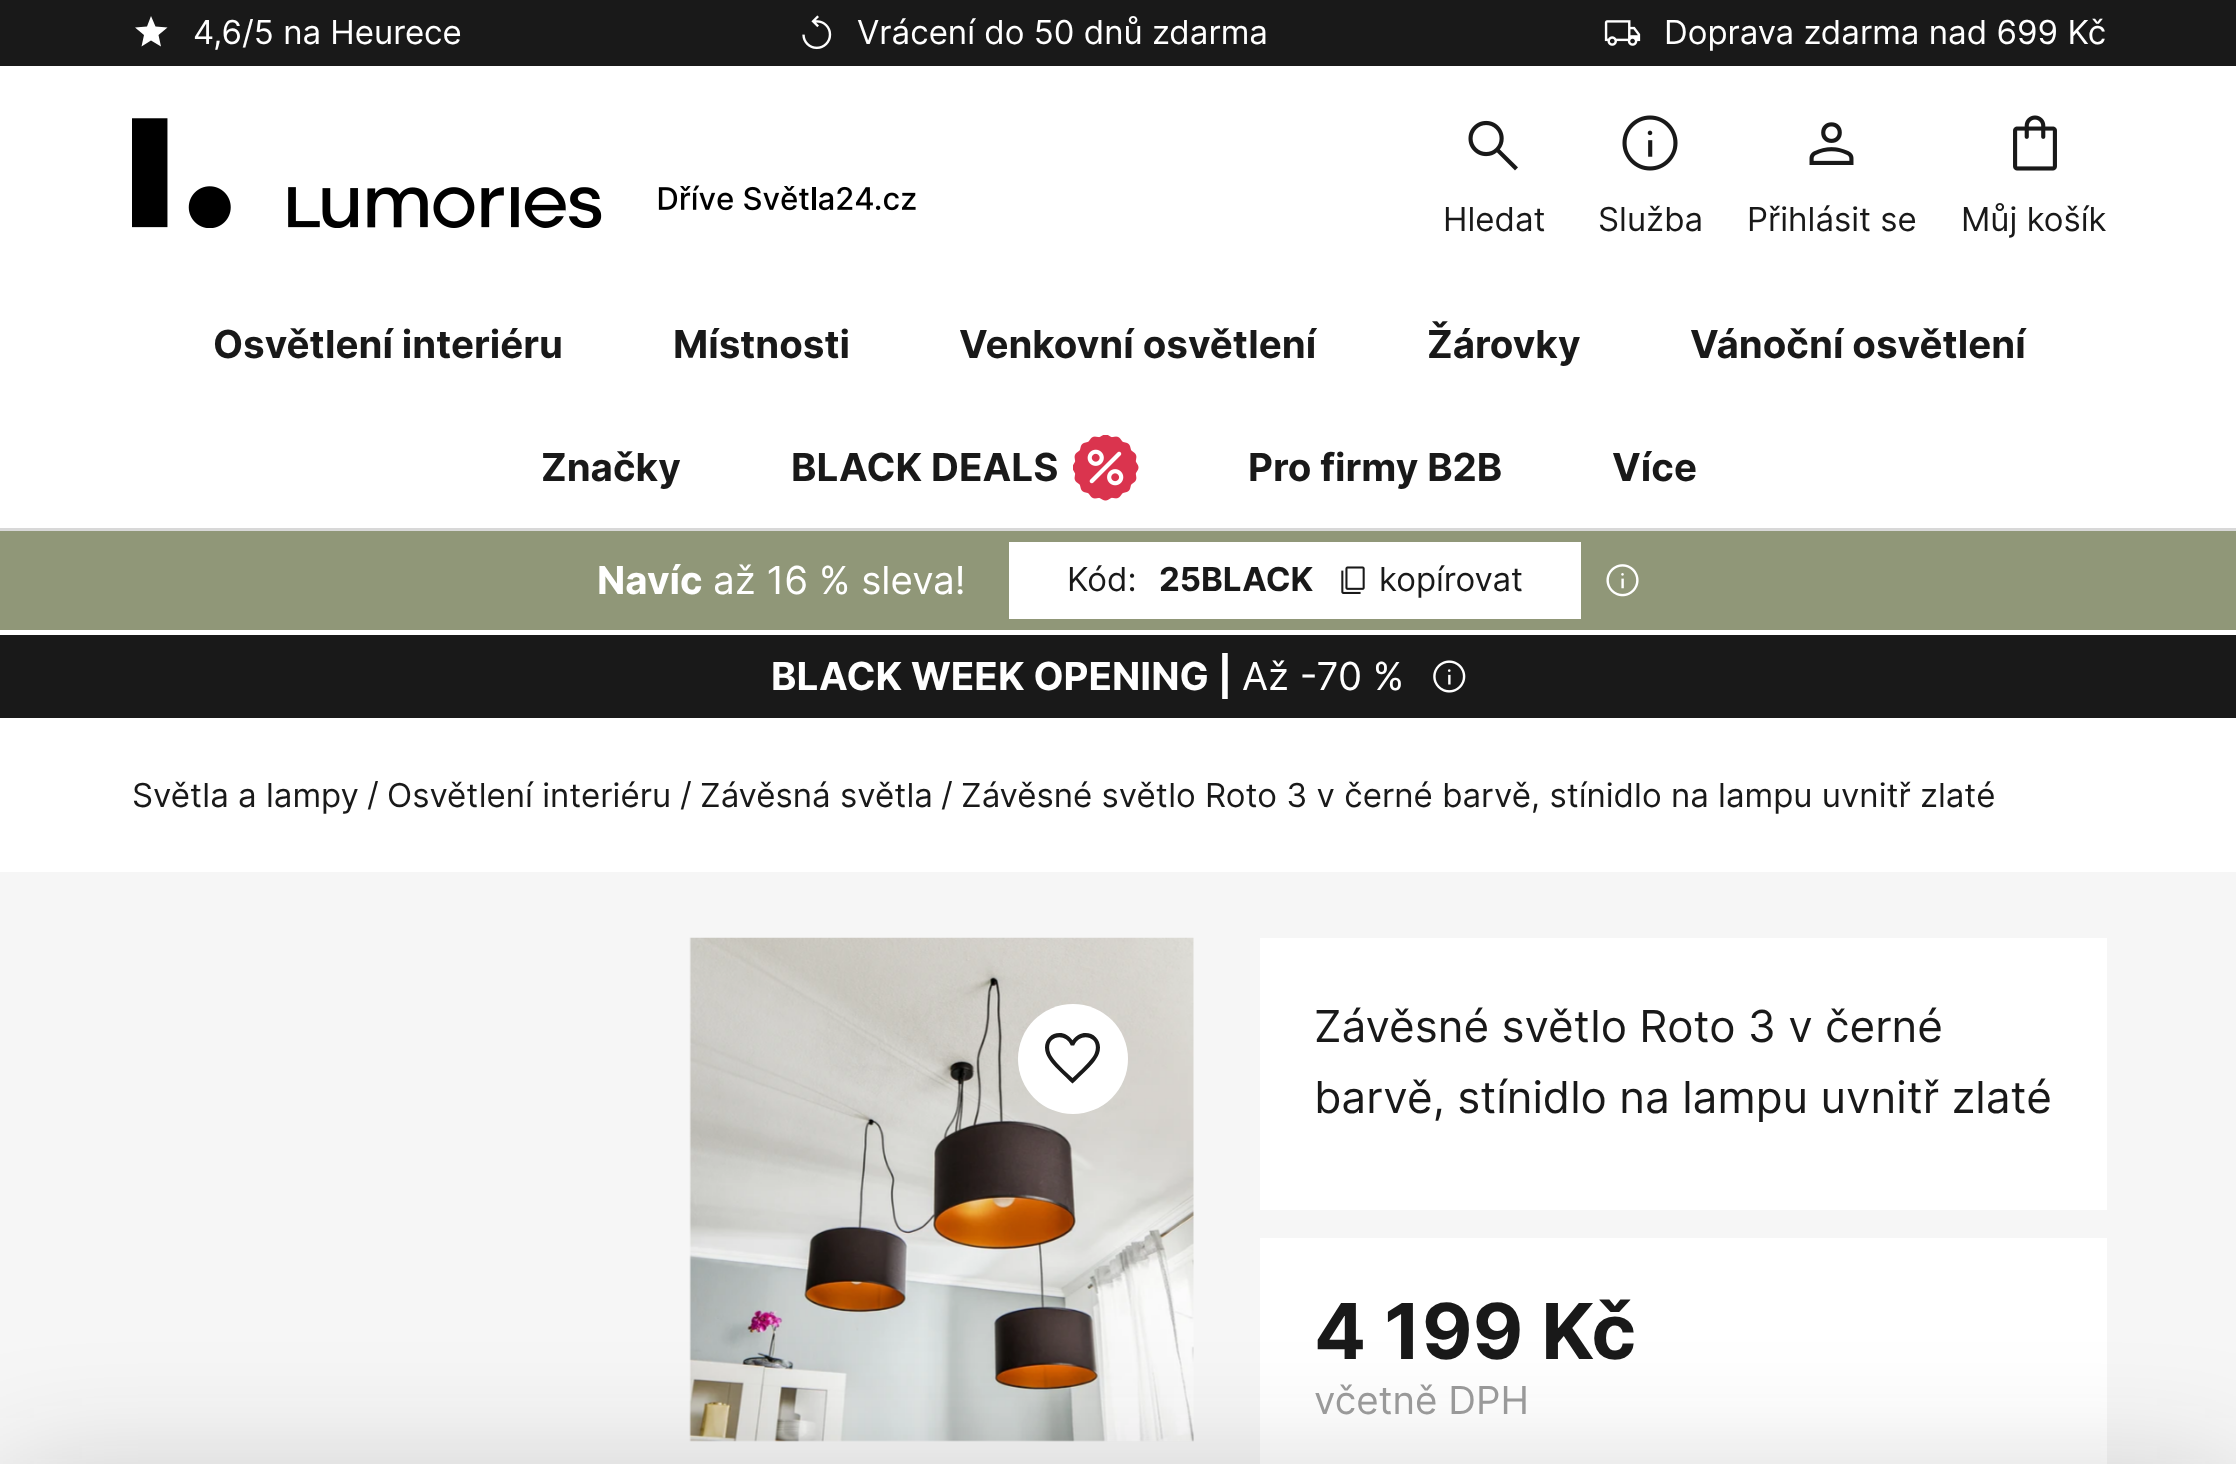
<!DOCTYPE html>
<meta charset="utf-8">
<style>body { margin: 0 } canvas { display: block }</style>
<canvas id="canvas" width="2236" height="1464"></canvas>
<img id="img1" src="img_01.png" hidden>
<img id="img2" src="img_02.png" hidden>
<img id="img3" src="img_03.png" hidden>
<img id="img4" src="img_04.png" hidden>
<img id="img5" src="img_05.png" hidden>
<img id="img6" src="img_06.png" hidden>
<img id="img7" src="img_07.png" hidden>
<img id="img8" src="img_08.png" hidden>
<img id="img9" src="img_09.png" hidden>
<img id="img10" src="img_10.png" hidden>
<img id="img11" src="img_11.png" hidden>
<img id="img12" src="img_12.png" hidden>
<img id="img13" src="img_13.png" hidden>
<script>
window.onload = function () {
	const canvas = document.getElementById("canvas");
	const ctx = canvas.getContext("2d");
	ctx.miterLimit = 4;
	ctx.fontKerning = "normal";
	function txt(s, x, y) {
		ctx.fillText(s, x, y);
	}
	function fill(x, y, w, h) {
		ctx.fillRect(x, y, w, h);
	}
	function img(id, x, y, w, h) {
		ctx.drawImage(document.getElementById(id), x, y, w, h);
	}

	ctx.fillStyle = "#FFFFFF";
	fill(0, 0, 2236, 1464);
	ctx.fillStyle = "#191919";
	fill(0, 0, 2236, 66);
	ctx.fillStyle = "#FFFFFF";
	ctx.beginPath();
	ctx.moveTo(141.5, 46.5);
	ctx.lineTo(144, 35);
	ctx.lineTo(135, 27.5);
	ctx.lineTo(147, 26.5);
	ctx.lineTo(151, 16);
	ctx.lineTo(155.5, 26.5);
	ctx.lineTo(167.5, 27.5);
	ctx.lineTo(158.5, 35);
	ctx.lineTo(161, 46.5);
	ctx.lineTo(151, 40.5);
	ctx.closePath();
	ctx.fill();
	img("img1", 802, 15, 30, 35);
	img("img2", 1604, 20, 37, 26);
	img("img3", 132, 118, 784, 110);
	img("img4", 1468, 120, 50, 51);
	img("img5", 1622, 115, 56, 56);
	img("img6", 1809, 122, 45, 43);
	img("img7", 2013, 115, 44, 56);
	ctx.fillStyle = "#D8D8D8";
	fill(0, 528, 2236, 3);
	img("img8", 1073, 435, 66, 66);
	ctx.fillStyle = "#909778";
	fill(0, 531, 2236, 99);
	ctx.fillStyle = "#FFFFFF";
	fill(1009, 542, 572, 77);
	img("img9", 1341, 566, 24, 28);
	img("img10", 1606, 564, 33, 33);
	ctx.fillStyle = "#191919";
	fill(0, 635, 2236, 83);
	img("img11", 1433, 660, 33, 33);
	ctx.fillStyle = "#F6F6F6";
	fill(0, 872, 2236, 592);
	img("img12", 689, 937, 505, 505);
	ctx.fillStyle = "#FFFFFF";
	ctx.beginPath();
	ctx.arc(1073, 1059, 55, 0, Math.PI * 2);
	ctx.fill();
	img("img13", 1045, 1033, 55, 51);
	fill(1260, 938, 847, 272);
	fill(1260, 1238, 847, 226);
	ctx.fillStyle = "rgba(25, 25, 25, 0.2)";
	ctx.filter = "blur(66px)";
	ctx.beginPath();
	ctx.rect(0, 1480, 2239, 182);
	ctx.fill();
	ctx.filter = "none";
	ctx.font = "33px Inter";
	ctx.fillStyle = "#FFFFFF";
	txt("4,6/5 na Heurece", 193, 44);
	txt("Vrácení do 50 dnů zdarma", 857, 44);
	txt("Doprava zdarma nad 699 Kč", 1664, 44);
	ctx.fillStyle = "#191919";
	txt("Hledat", 1443, 231);
	txt("Služba", 1598, 231);
	txt("Přihlásit se", 1747, 231);
	txt("Můj košík", 1961, 231);
	ctx.font = "bold 38.5px Inter";
	txt("Osvětlení interiéru", 213, 358);
	txt("Místnosti", 673, 358);
	txt("Venkovní osvětlení", 959, 358);
	txt("Žárovky", 1427, 358);
	txt("Vánoční osvětlení", 1690, 358);
	txt("Značky", 541, 481);
	txt("BLACK DEALS", 791, 481);
	txt("Pro firmy B2B", 1248, 481);
	txt("Více", 1612, 481);
	ctx.fillStyle = "#FFFFFF";
	txt("Navíc", 597, 594);
	ctx.font = "38.5px Inter";
	txt("až 16 % sleva!", 713, 594);
	ctx.font = "33px Inter";
	ctx.fillStyle = "#191919";
	txt("Kód:", 1067, 591);
	ctx.font = "bold 33px Inter";
	txt("25BLACK", 1159, 591);
	ctx.font = "33px Inter";
	txt("kopírovat", 1379, 591);
	ctx.font = "bold 38.5px Inter";
	ctx.fillStyle = "#FFFFFF";
	txt("BLACK WEEK OPENING |", 771, 690);
	ctx.font = "38.5px Inter";
	txt("Až -70 %", 1242, 690);
	ctx.font = "33px Inter";
	ctx.fillStyle = "#191919";
	txt("Světla a lampy", 132, 807);
	txt("/", 367, 806);
	txt("Osvětlení interiéru", 387, 807);
	txt("/", 680, 806);
	txt("Závěsná světla", 700, 807);
	txt("/", 941, 806);
	txt("Závěsné světlo Roto 3 v černé barvě, stínidlo na lampu uvnitř zlaté", 961, 807);
	ctx.font = "44px Inter";
	txt("Závěsné světlo Roto 3 v černé", 1314, 1042);
	txt("barvě, stínidlo na lampu uvnitř zlaté", 1314, 1113);
	ctx.font = "bold 77px Inter";
	txt("4 199 Kč", 1314, 1359);
	ctx.font = "38.5px Inter";
	ctx.fillStyle = "#999999";
	txt("včetně DPH", 1314, 1414);
};
</script>
